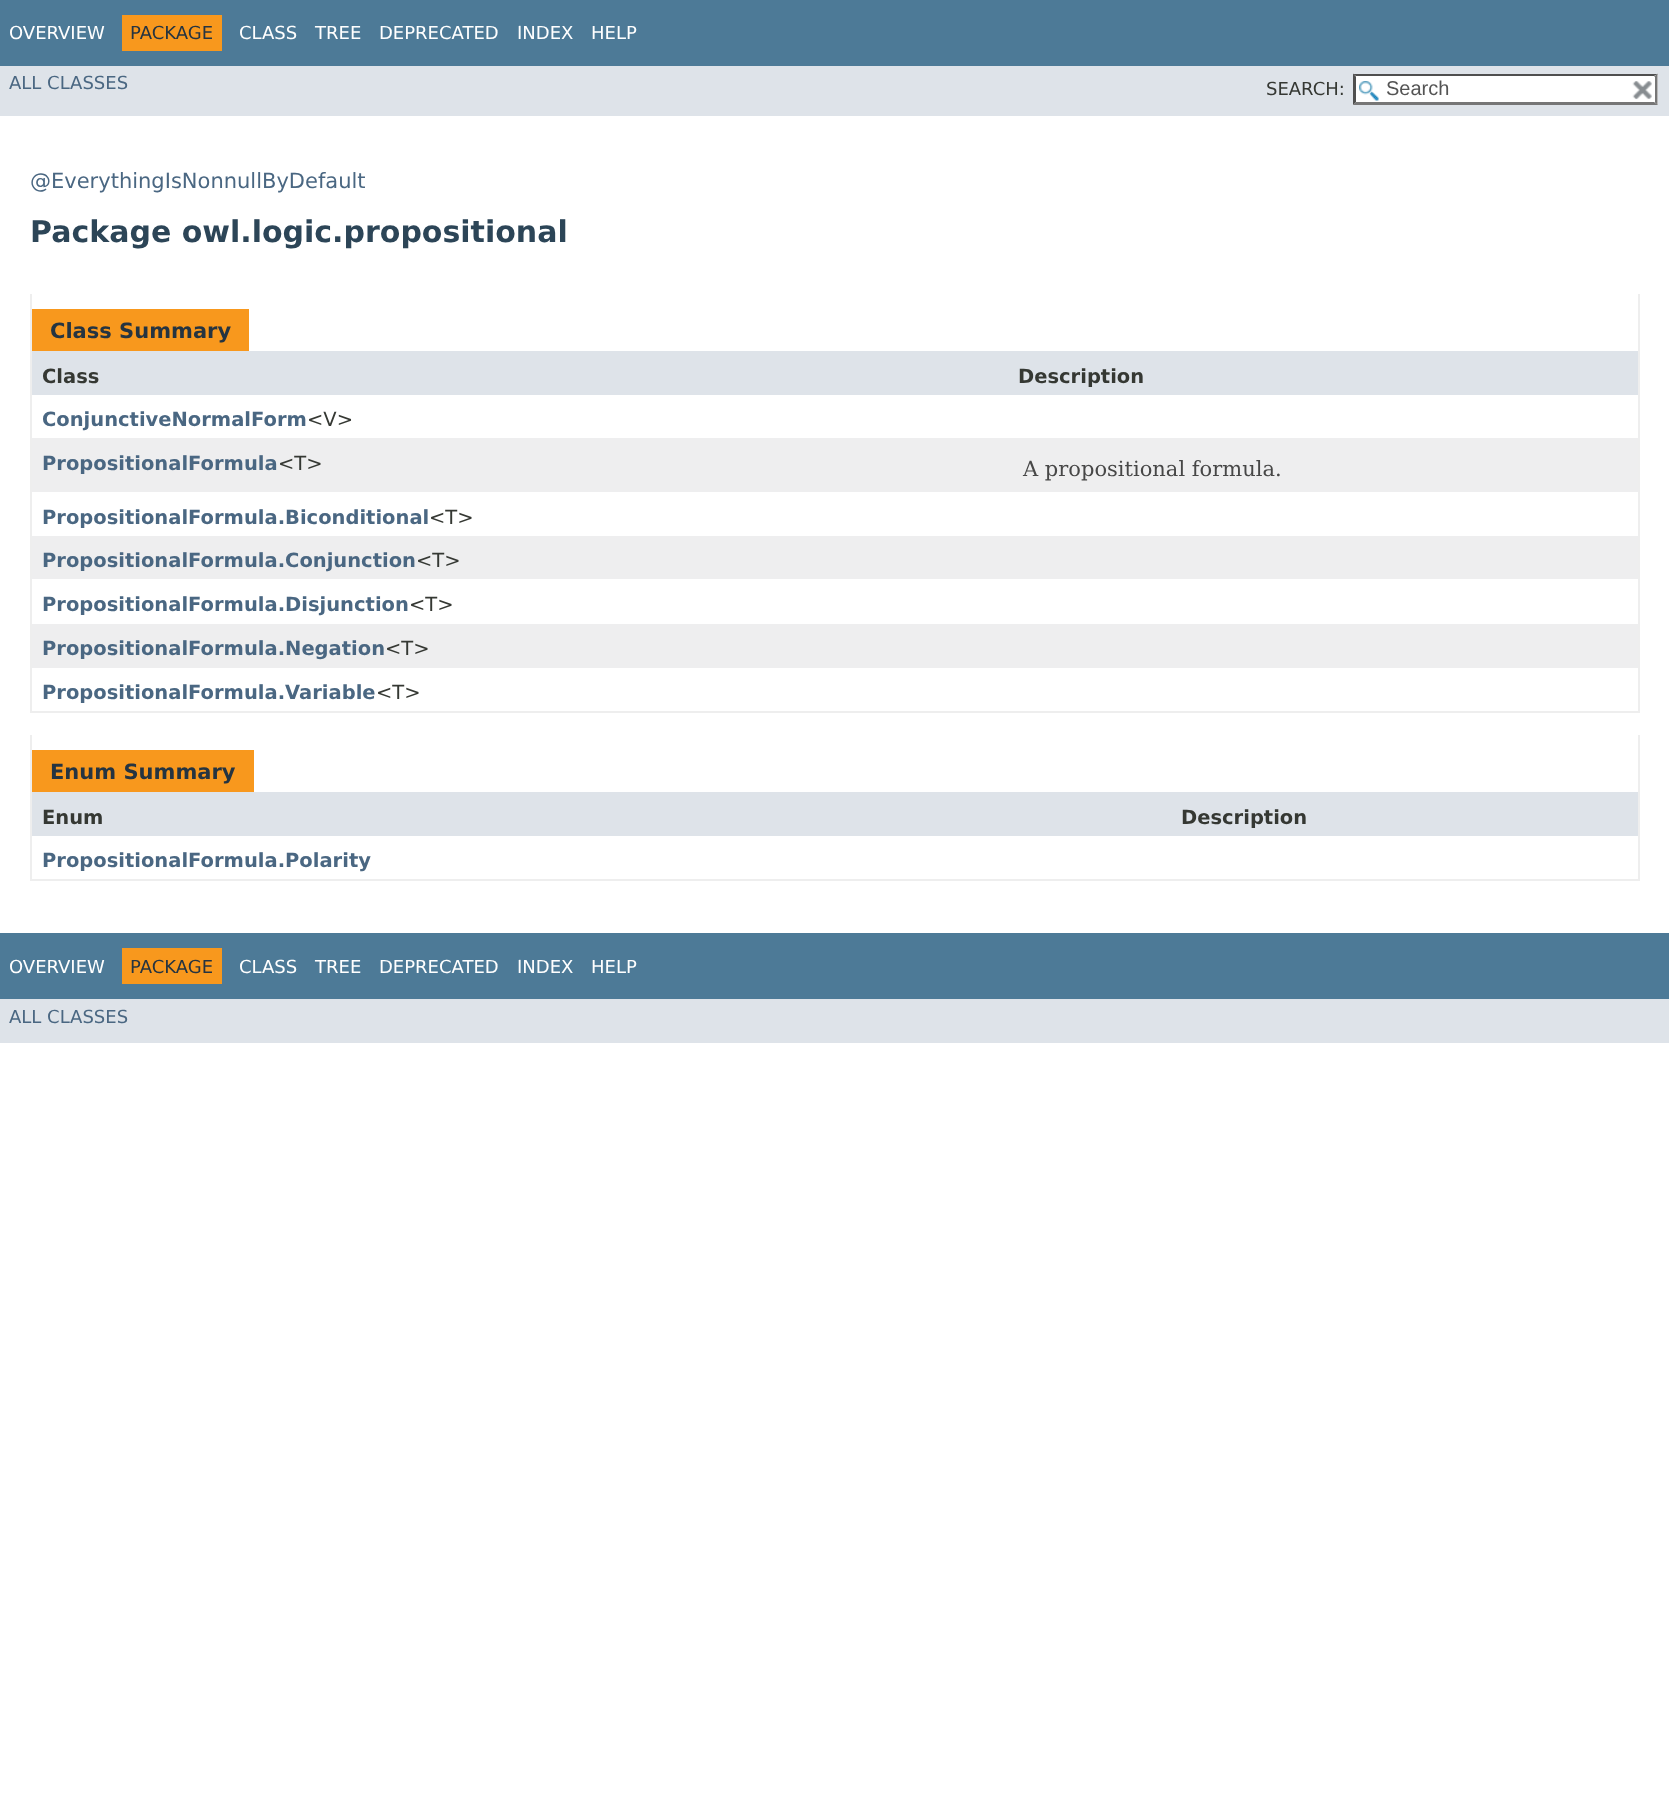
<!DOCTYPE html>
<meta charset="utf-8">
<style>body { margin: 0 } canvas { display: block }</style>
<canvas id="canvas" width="1669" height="1803"></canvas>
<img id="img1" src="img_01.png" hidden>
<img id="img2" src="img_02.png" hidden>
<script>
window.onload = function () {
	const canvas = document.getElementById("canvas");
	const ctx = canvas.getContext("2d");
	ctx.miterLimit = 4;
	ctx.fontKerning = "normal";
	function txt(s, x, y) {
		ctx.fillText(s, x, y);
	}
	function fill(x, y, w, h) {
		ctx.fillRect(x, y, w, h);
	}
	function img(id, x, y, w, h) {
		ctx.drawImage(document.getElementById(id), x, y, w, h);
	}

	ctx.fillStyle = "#FFFFFF";
	fill(0, 0, 1669, 1803);
	ctx.fillStyle = "#4D7A97";
	fill(0, 0, 1669, 66);
	ctx.fillStyle = "#F8981D";
	fill(122, 15, 100, 36);
	ctx.fillStyle = "#DEE3E9";
	fill(0, 66, 1669, 50);
	ctx.fillStyle = "#FFFFFF";
	fill(1353, 74, 305, 31);
	img("img1", 1359, 81, 20, 20);
	ctx.fillStyle = "#4F4F4F";
	ctx.beginPath();
	ctx.moveTo(1353, 74);
	ctx.lineTo(1658, 74);
	ctx.lineTo(1654, 76);
	ctx.lineTo(1356, 76);
	ctx.closePath();
	ctx.fill();
	ctx.fillStyle = "#767676";
	ctx.beginPath();
	ctx.moveTo(1657.5, 73.5);
	ctx.lineTo(1657.5, 105);
	ctx.lineTo(1654.5, 102);
	ctx.lineTo(1654.5, 76.5);
	ctx.closePath();
	ctx.fill();
	ctx.beginPath();
	ctx.moveTo(1658, 105);
	ctx.lineTo(1353, 105);
	ctx.lineTo(1356, 102);
	ctx.lineTo(1654, 102);
	ctx.closePath();
	ctx.fill();
	ctx.fillStyle = "#4F4F4F";
	ctx.beginPath();
	ctx.moveTo(1353, 105);
	ctx.lineTo(1353, 73.5);
	ctx.lineTo(1356, 76.5);
	ctx.lineTo(1356, 102);
	ctx.closePath();
	ctx.fill();
	ctx.fillStyle = "#FFFFFF";
	fill(1654, 77, 1, 25);
	img("img2", 1632, 81, 20, 19);
	ctx.fillStyle = "#EEEEEE";
	fill(1638, 294, 2, 419);
	fill(30, 711, 1610, 2);
	fill(30, 294, 2, 419);
	ctx.fillStyle = "#F8981D";
	fill(32, 309, 217, 42);
	ctx.fillStyle = "#DEE3E9";
	fill(32, 351, 1606, 44);
	ctx.fillStyle = "#EEEEEF";
	fill(32, 438, 1606, 54);
	fill(32, 536, 1606, 43);
	fill(32, 624, 1606, 44);
	ctx.fillStyle = "#EEEEEE";
	fill(1638, 735, 2, 146);
	fill(30, 879, 1610, 2);
	fill(30, 735, 2, 146);
	ctx.fillStyle = "#F8981D";
	fill(32, 750, 222, 42);
	ctx.fillStyle = "#DEE3E9";
	fill(32, 792, 1606, 44);
	ctx.fillStyle = "#4D7A97";
	fill(0, 933, 1669, 66);
	ctx.fillStyle = "#F8981D";
	fill(122, 948, 100, 36);
	ctx.fillStyle = "#DEE3E9";
	fill(0, 999, 1669, 44);
	ctx.font = "18px DejaVu Sans";
	ctx.fillStyle = "#FFFFFF";
	txt("OVERVIEW", 9, 39);
	ctx.fillStyle = "#253441";
	txt("PACKAGE", 130, 39);
	ctx.fillStyle = "#FFFFFF";
	txt("CLASS", 239, 39);
	txt("TREE", 315, 39);
	txt("DEPRECATED", 379, 39);
	txt("INDEX", 517, 39);
	txt("HELP", 591, 39);
	ctx.fillStyle = "#4A6782";
	txt("ALL CLASSES", 9, 89);
	ctx.fillStyle = "#353833";
	txt("SEARCH:", 1266, 95);
	ctx.font = "20px Liberation Sans";
	ctx.fillStyle = "#545454";
	txt("Search", 1386, 95);
	ctx.font = "21px DejaVu Sans";
	ctx.fillStyle = "#4A6782";
	txt("@EverythingIsNonnullByDefault", 30, 188);
	ctx.font = "bold 30px DejaVu Sans";
	ctx.fillStyle = "#2C4557";
	txt("Package owl.logic.propositional", 30, 242);
	ctx.font = "bold 21px DejaVu Sans";
	ctx.fillStyle = "#253441";
	txt("Class Summary", 50, 338);
	ctx.font = "bold 19.5px DejaVu Sans";
	ctx.fillStyle = "#353833";
	txt("Class", 42, 383);
	txt("Description", 1018, 383);
	ctx.fillStyle = "#4A6782";
	txt("ConjunctiveNormalForm", 42, 426);
	ctx.font = "19.5px DejaVu Sans";
	ctx.fillStyle = "#353833";
	txt("<V>", 307, 426);
	ctx.font = "bold 19.5px DejaVu Sans";
	ctx.fillStyle = "#4A6782";
	txt("PropositionalFormula", 42, 470);
	ctx.font = "19.5px DejaVu Sans";
	ctx.fillStyle = "#353833";
	txt("<T>", 278, 470);
	ctx.font = "21px DejaVu Serif";
	ctx.fillStyle = "#474747";
	txt("A propositional formula.", 1023, 476);
	ctx.font = "bold 19.5px DejaVu Sans";
	ctx.fillStyle = "#4A6782";
	txt("PropositionalFormula.Biconditional", 42, 524);
	ctx.font = "19.5px DejaVu Sans";
	ctx.fillStyle = "#353833";
	txt("<T>", 429, 524);
	ctx.font = "bold 19.5px DejaVu Sans";
	ctx.fillStyle = "#4A6782";
	txt("PropositionalFormula.Conjunction", 42, 567);
	ctx.font = "19.5px DejaVu Sans";
	ctx.fillStyle = "#353833";
	txt("<T>", 416, 567);
	ctx.font = "bold 19.5px DejaVu Sans";
	ctx.fillStyle = "#4A6782";
	txt("PropositionalFormula.Disjunction", 42, 611);
	ctx.font = "19.5px DejaVu Sans";
	ctx.fillStyle = "#353833";
	txt("<T>", 409, 611);
	ctx.font = "bold 19.5px DejaVu Sans";
	ctx.fillStyle = "#4A6782";
	txt("PropositionalFormula.Negation", 42, 655);
	ctx.font = "19.5px DejaVu Sans";
	ctx.fillStyle = "#353833";
	txt("<T>", 385, 655);
	ctx.font = "bold 19.5px DejaVu Sans";
	ctx.fillStyle = "#4A6782";
	txt("PropositionalFormula.Variable", 42, 699);
	ctx.font = "19.5px DejaVu Sans";
	ctx.fillStyle = "#353833";
	txt("<T>", 376, 699);
	ctx.font = "bold 21px DejaVu Sans";
	ctx.fillStyle = "#253441";
	txt("Enum Summary", 50, 779);
	ctx.font = "bold 19.5px DejaVu Sans";
	ctx.fillStyle = "#353833";
	txt("Enum", 42, 824);
	txt("Description", 1181, 824);
	ctx.fillStyle = "#4A6782";
	txt("PropositionalFormula.Polarity", 42, 867);
	ctx.font = "18px DejaVu Sans";
	ctx.fillStyle = "#FFFFFF";
	txt("OVERVIEW", 9, 973);
	ctx.fillStyle = "#253441";
	txt("PACKAGE", 130, 973);
	ctx.fillStyle = "#FFFFFF";
	txt("CLASS", 239, 973);
	txt("TREE", 315, 973);
	txt("DEPRECATED", 379, 973);
	txt("INDEX", 517, 973);
	txt("HELP", 591, 973);
	ctx.fillStyle = "#4A6782";
	txt("ALL CLASSES", 9, 1023);
};
</script>
